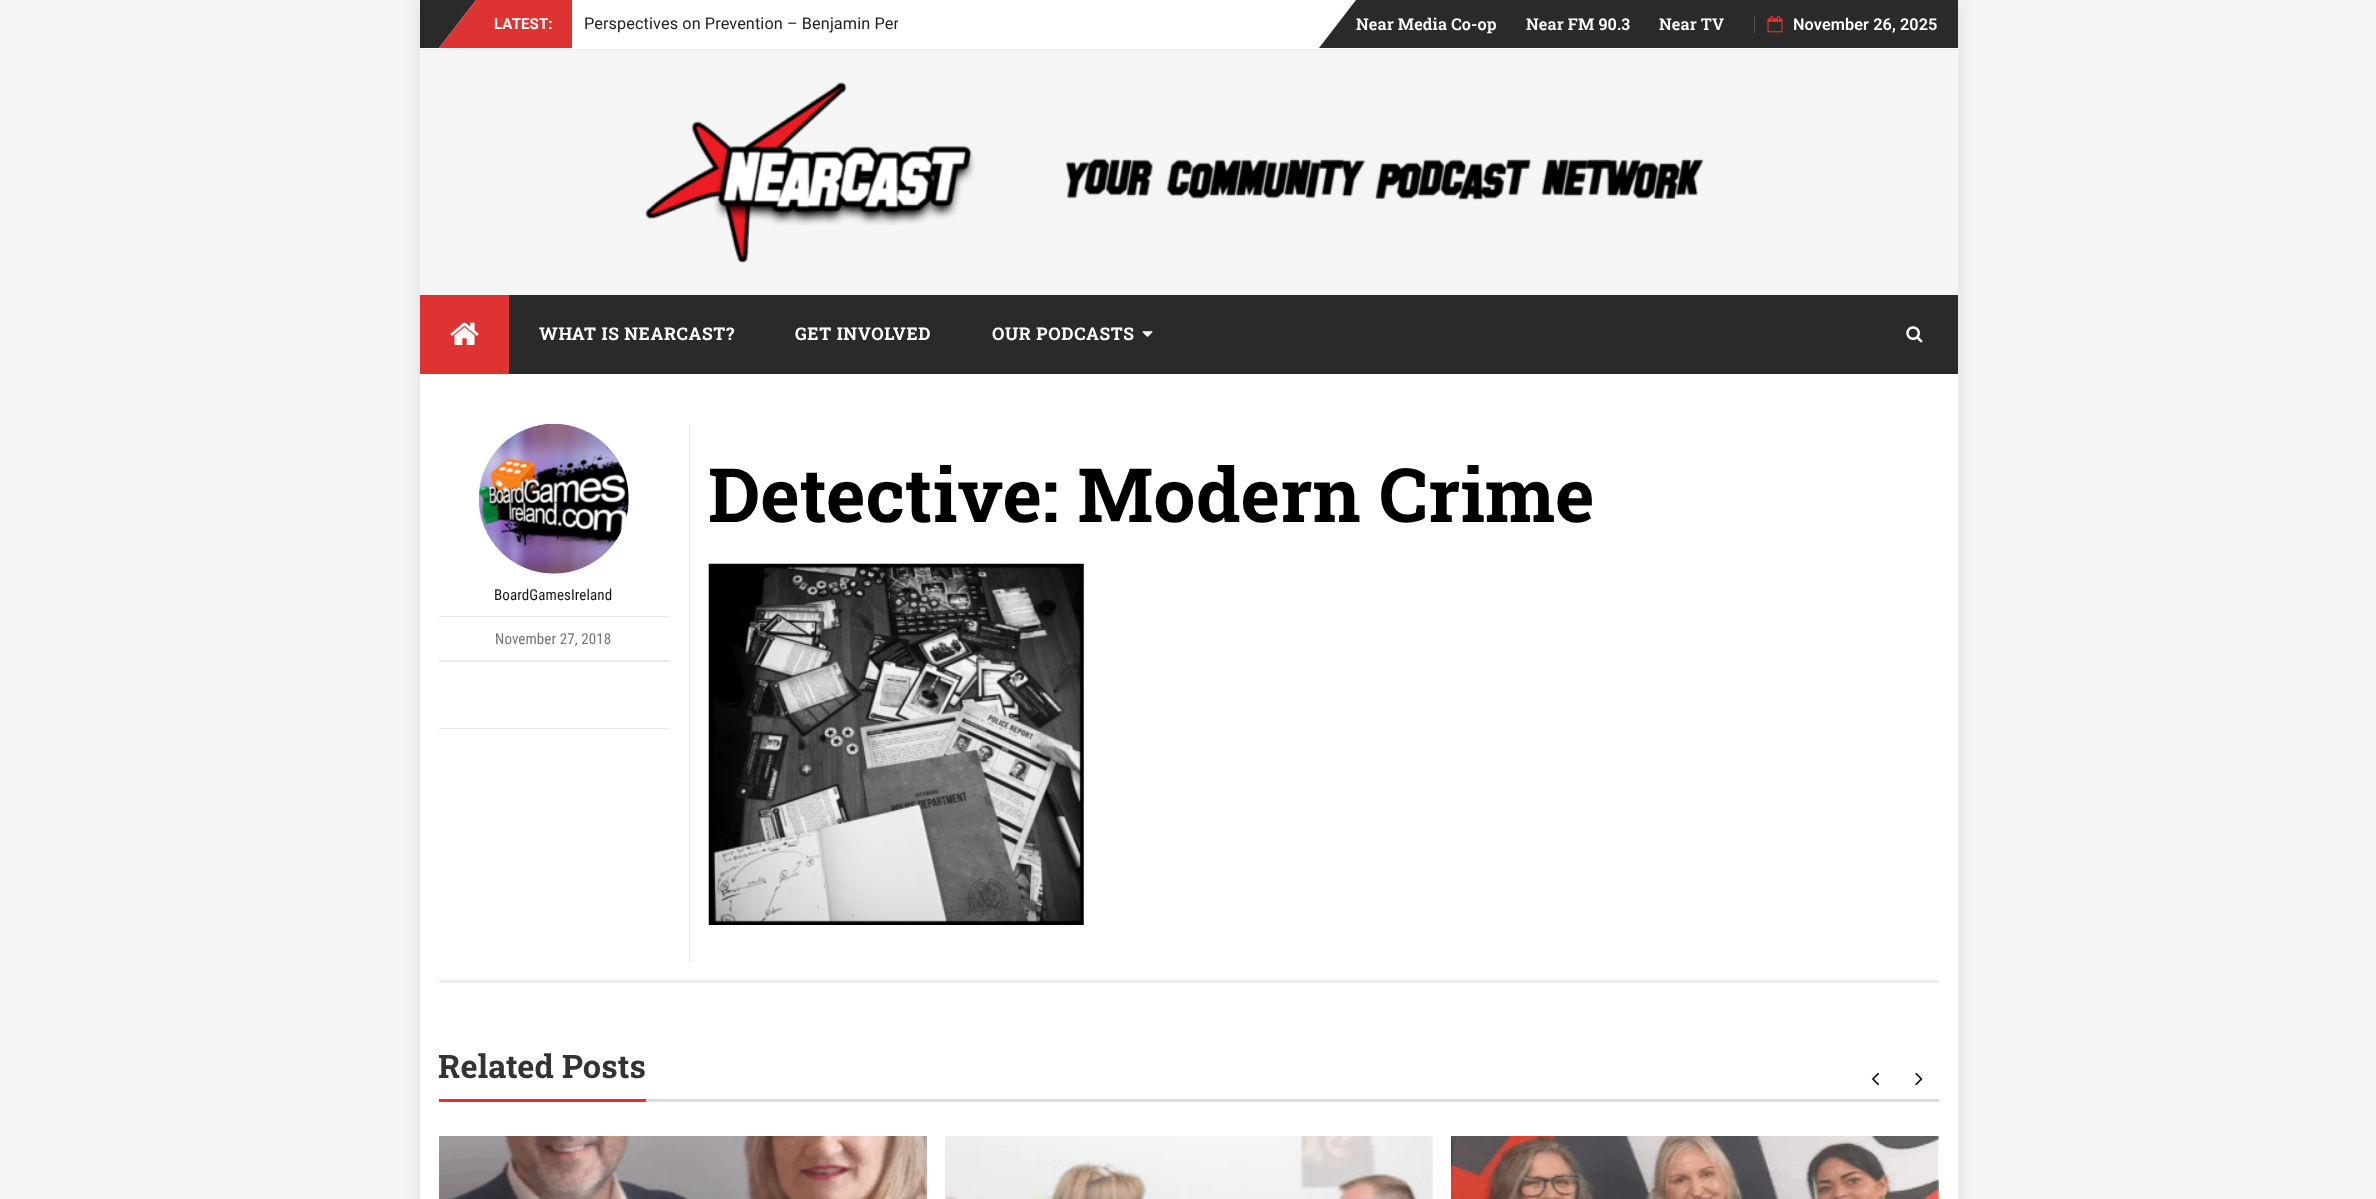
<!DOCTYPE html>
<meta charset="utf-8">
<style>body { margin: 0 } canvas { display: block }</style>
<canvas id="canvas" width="2376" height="1199"></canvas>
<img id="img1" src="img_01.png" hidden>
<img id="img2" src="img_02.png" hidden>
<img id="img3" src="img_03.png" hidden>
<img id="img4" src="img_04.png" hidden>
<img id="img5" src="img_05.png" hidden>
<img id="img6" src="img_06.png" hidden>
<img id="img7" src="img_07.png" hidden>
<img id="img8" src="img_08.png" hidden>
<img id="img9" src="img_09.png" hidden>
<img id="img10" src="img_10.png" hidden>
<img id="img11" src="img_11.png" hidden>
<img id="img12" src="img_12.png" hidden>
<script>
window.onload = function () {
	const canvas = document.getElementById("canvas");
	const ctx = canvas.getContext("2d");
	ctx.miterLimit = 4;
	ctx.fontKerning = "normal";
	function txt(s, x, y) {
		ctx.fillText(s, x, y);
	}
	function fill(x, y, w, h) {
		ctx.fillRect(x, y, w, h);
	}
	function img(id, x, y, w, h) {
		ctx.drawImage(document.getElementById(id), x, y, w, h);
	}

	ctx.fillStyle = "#F5F5F5";
	fill(0, 0, 2376, 1199);
	ctx.fillStyle = "rgba(0, 0, 0, 0.1)";
	ctx.filter = "blur(9.5px)";
	ctx.beginPath();
	ctx.rect(420, 0, 1538, 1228);
	ctx.fill();
	ctx.filter = "none";
	ctx.fillStyle = "#FFFFFF";
	fill(420, 0, 1538, 1199);
	ctx.fillStyle = "#EAEAEA";
	fill(420, 49, 1538, 1);
	ctx.fillStyle = "#2A2A2A";
	ctx.beginPath();
	ctx.moveTo(420, 0);
	ctx.lineTo(476, 0);
	ctx.lineTo(439, 48);
	ctx.lineTo(420, 48);
	ctx.closePath();
	ctx.fill();
	ctx.fillStyle = "#DD3333";
	ctx.beginPath();
	ctx.moveTo(572, 48);
	ctx.lineTo(439, 48);
	ctx.lineTo(476, 0);
	ctx.lineTo(572, 0);
	ctx.closePath();
	ctx.fill();
	ctx.fillStyle = "#2A2A2A";
	ctx.beginPath();
	ctx.moveTo(1958, 48);
	ctx.lineTo(1319, 48);
	ctx.lineTo(1356, 0);
	ctx.lineTo(1958, 0);
	ctx.closePath();
	ctx.fill();
	ctx.fillStyle = "#565656";
	fill(1754, 16, 1, 17);
	img("img1", 1767, 16, 16, 17);
	ctx.fillStyle = "#F5F5F5";
	fill(420, 50, 1538, 245);
	img("img2", 645, 82, 1059, 181);
	ctx.fillStyle = "#2A2A2A";
	fill(509, 295, 1449, 79);
	ctx.fillStyle = "#DD3333";
	fill(420, 295, 89, 79);
	img("img3", 450, 322, 29, 23);
	img("img4", 1142, 331, 11, 6);
	img("img5", 1906, 326, 17, 17);
	ctx.fillStyle = "#EEEEEE";
	fill(439, 980, 1500, 3);
	ctx.fillStyle = "#EBEBEB";
	fill(689, 424, 1, 539);
	img("img6", 708, 563, 376, 362);
	fill(439, 660, 231, 1);
	img("img7", 478, 423, 151, 151);
	fill(439, 616, 231, 1);
	ctx.fillStyle = "#EAEAEA";
	fill(439, 661, 231, 1);
	fill(439, 728, 231, 1);
	ctx.fillStyle = "#DD3333";
	fill(439, 1099, 207, 3);
	ctx.fillStyle = "#DDDDDD";
	fill(646, 1099, 1293, 3);
	img("img8", 1871, 1072, 9, 14);
	img("img9", 1915, 1072, 8, 14);
	img("img10", 439, 1136, 488, 63);
	img("img11", 945, 1136, 488, 63);
	img("img12", 1451, 1136, 488, 63);
	ctx.letterSpacing = "0.1px";
	ctx.font = "bold 15px Roboto";
	ctx.fillStyle = "#FFFFFF";
	txt("LATEST:", 494, 29);
	ctx.save();
	ctx.beginPath();
	ctx.rect(585, 0, 313, 38);
	ctx.clip();
	ctx.font = "16.25px Roboto";
	ctx.fillStyle = "#222222";
	txt("Perspectives on Prevention – Benjamin Per", 584, 29);
	ctx.restore();
	ctx.font = "600 16.25px Roboto Slab";
	txt("Near Media Co-op", 1356, 30);
	txt("Near FM 90.3", 1526, 30);
	txt("Near TV", 1659, 30);
	ctx.font = "600 16.25px Roboto";
	txt("November 26, 2025", 1793, 30);
	ctx.letterSpacing = "0.6px";
	ctx.font = "bold 17.5px Roboto Slab";
	txt("WHAT IS NEARCAST?", 539, 340);
	txt("GET INVOLVED", 795, 340);
	txt("OUR PODCASTS", 992, 340);
	ctx.letterSpacing = "0.1px";
	ctx.font = "bold 75px Roboto Slab";
	ctx.fillStyle = "#000000";
	txt("Detective: Modern Crime", 708, 522);
	ctx.font = "15px Roboto Condensed";
	ctx.fillStyle = "#181818";
	txt("BoardGamesIreland", 494, 600);
	ctx.fillStyle = "#737373";
	txt("November 27, 2018", 495, 644);
	ctx.font = "bold 32.5px Roboto Slab";
	ctx.fillStyle = "#333333";
	txt("Related Posts", 438, 1078);
};
</script>
